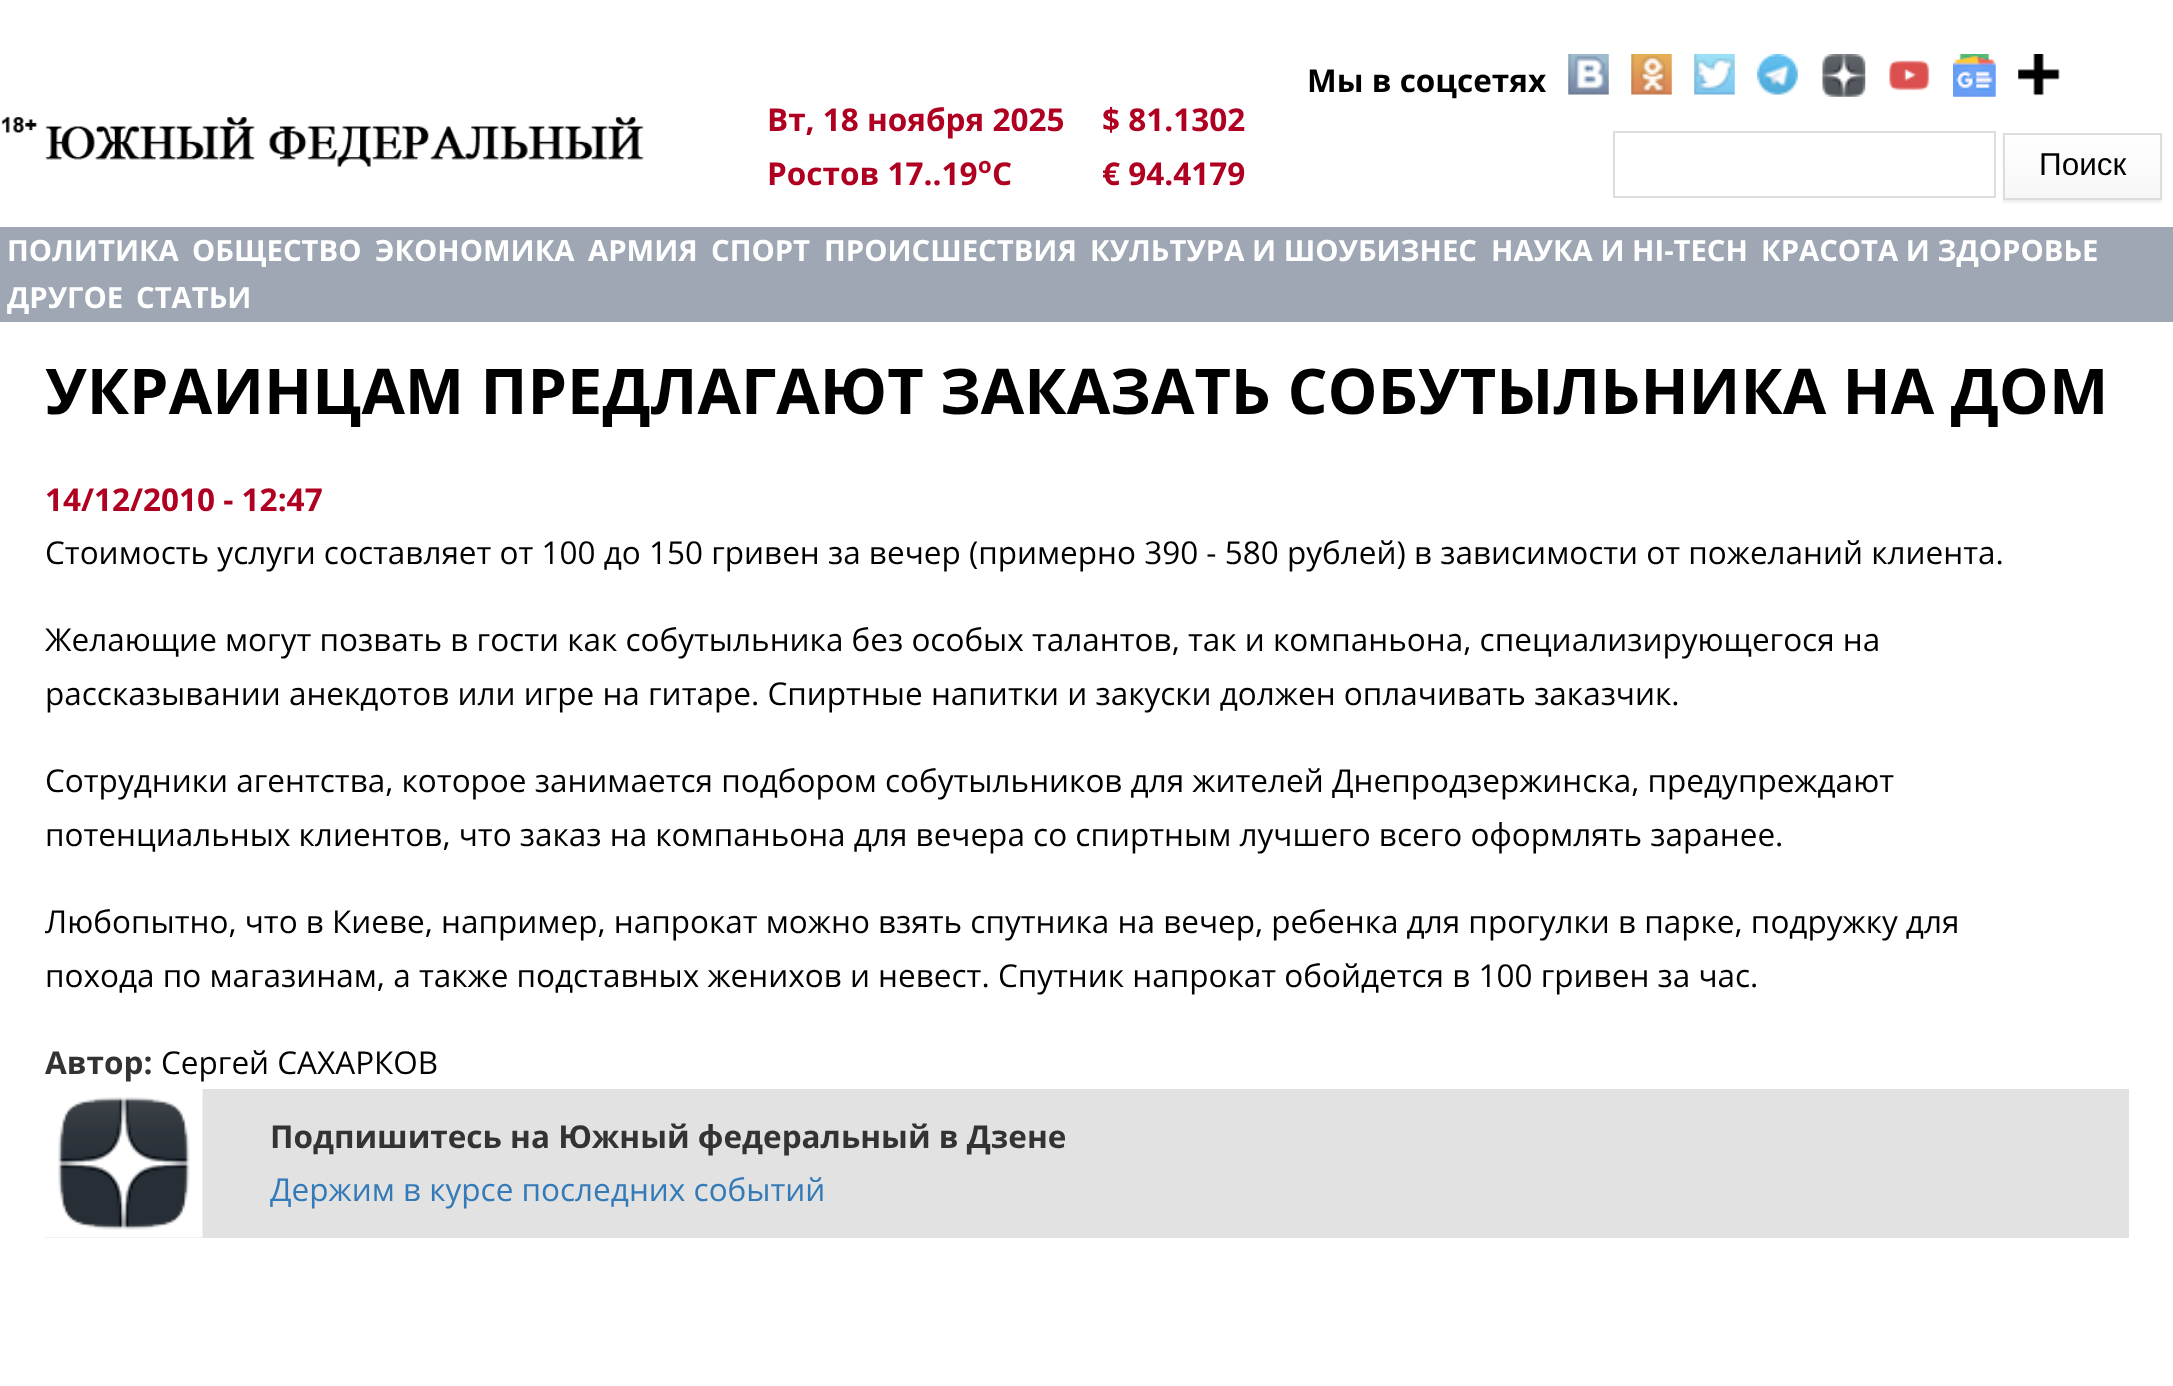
<!DOCTYPE html>
<meta charset="utf-8">
<style>body { margin: 0 } canvas { display: block }</style>
<canvas id="canvas" width="2173" height="1386"></canvas>
<img id="img1" src="img_01.png" hidden>
<img id="img2" src="img_02.png" hidden>
<img id="img3" src="img_03.png" hidden>
<img id="img4" src="img_04.png" hidden>
<img id="img5" src="img_05.png" hidden>
<img id="img6" src="img_06.png" hidden>
<img id="img7" src="img_07.png" hidden>
<img id="img8" src="img_08.png" hidden>
<img id="img9" src="img_09.png" hidden>
<img id="img10" src="img_10.png" hidden>
<script>
window.onload = function () {
	const canvas = document.getElementById("canvas");
	const ctx = canvas.getContext("2d");
	ctx.miterLimit = 4;
	ctx.fontKerning = "normal";
	function txt(s, x, y) {
		ctx.fillText(s, x, y);
	}
	function fill(x, y, w, h) {
		ctx.fillRect(x, y, w, h);
	}
	function img(id, x, y, w, h) {
		ctx.drawImage(document.getElementById(id), x, y, w, h);
	}
	let gradient;

	ctx.fillStyle = "#FFFFFF";
	fill(0, 0, 2173, 1386);
	img("img1", 1, 117, 643, 50);
	img("img2", 1568, 54, 41, 41);
	img("img3", 1631, 54, 41, 41);
	img("img4", 1694, 54, 41, 41);
	img("img5", 1757, 54, 41, 41);
	img("img6", 1822, 54, 44, 43);
	img("img7", 1889, 60, 41, 31);
	img("img8", 1953, 54, 43, 43);
	img("img9", 2018, 54, 42, 42);
	ctx.strokeStyle = "#DDDDDD";
	ctx.lineWidth = 2;
	ctx.strokeRect(1614, 132, 381, 65);
	ctx.fillStyle = "rgba(180, 180, 180, 0.2)";
	ctx.filter = "blur(1px)";
	ctx.beginPath();
	ctx.rect(2003, 135, 159, 68);
	ctx.fill();
	ctx.filter = "none";
	gradient = ctx.createLinearGradient(2082, 198, 2082, 135);
	gradient.addColorStop(0, "#F7F7F7");
	gradient.addColorStop(1, "#FFFFFF");
	ctx.fillStyle = gradient;
	fill(2005, 135, 155, 63);
	ctx.strokeRect(2004, 134, 157, 65);
	ctx.fillStyle = "#9EA7B3";
	fill(0, 227, 2173, 95);
	ctx.fillStyle = "#E2E2E2";
	fill(45, 1089, 2084, 149);
	img("img10", 45, 1089, 158, 149);
	ctx.font = "bold 31.5px Open Sans";
	ctx.fillStyle = "#000000";
	txt("Мы в соцсетях", 1307, 92);
	ctx.fillStyle = "#B00021";
	txt("Вт, 18 ноября 2025", 767, 131);
	txt("$ 81.1302", 1102, 131);
	txt("Ростов 17..19", 767, 185);
	ctx.font = "bold 22px Open Sans";
	txt("o", 978, 173);
	ctx.font = "bold 31.5px Open Sans";
	txt("C", 992, 185);
	txt("€ 94.4179", 1102, 185);
	ctx.font = "31.5px Liberation Sans";
	ctx.fillStyle = "#000000";
	txt("Поиск", 2039, 175);
	ctx.font = "bold 29.25px Open Sans";
	ctx.fillStyle = "#FFFFFF";
	txt("ПОЛИТИКА", 7, 261);
	txt("ОБЩЕСТВО", 192, 261);
	txt("ЭКОНОМИКА", 375, 261);
	txt("АРМИЯ", 588, 261);
	txt("СПОРТ", 711, 261);
	txt("ПРОИСШЕСТВИЯ", 824, 261);
	txt("КУЛЬТУРА И ШОУБИЗНЕС", 1090, 261);
	txt("НАУКА И HI-TECH", 1491, 261);
	txt("КРАСОТА И ЗДОРОВЬЕ", 1761, 261);
	txt("ДРУГОЕ", 7, 308);
	txt("СТАТЬИ", 136, 308);
	ctx.font = "bold 63px Open Sans";
	ctx.fillStyle = "#000000";
	txt("УКРАИНЦАМ ПРЕДЛАГАЮТ ЗАКАЗАТЬ СОБУТЫЛЬНИКА НА ДОМ", 45, 414);
	ctx.font = "bold 31.5px Open Sans";
	ctx.fillStyle = "#B00021";
	txt("14/12/2010 - 12:47", 45, 511);
	ctx.font = "31.5px Open Sans";
	ctx.fillStyle = "#000000";
	txt("Стоимость услуги составляет от 100 до 150 гривен за вечер (примерно 390 - 580 рублей) в зависимости от пожеланий клиента.", 45, 564);
	txt("Желающие могут позвать в гости как собутыльника без особых талантов, так и компаньона, специализирующегося на", 45, 651);
	txt("рассказывании анекдотов или игре на гитаре. Спиртные напитки и закуски должен оплачивать заказчик.", 45, 705);
	txt("Сотрудники агентства, которое занимается подбором собутыльников для жителей Днепродзержинска, предупреждают", 45, 792);
	txt("потенциальных клиентов, что заказ на компаньона для вечера со спиртным лучшего всего оформлять заранее.", 45, 846);
	txt("Любопытно, что в Киеве, например, напрокат можно взять спутника на вечер, ребенка для прогулки в парке, подружку для", 45, 933);
	txt("похода по магазинам, а также подставных женихов и невест. Спутник напрокат обойдется в 100 гривен за час.", 45, 987);
	ctx.font = "bold 31.5px Open Sans";
	ctx.fillStyle = "#333333";
	txt("Автор:", 45, 1074);
	ctx.font = "31.5px Open Sans";
	ctx.fillStyle = "#000000";
	txt("Сергей САХАРКОВ", 161, 1074);
	ctx.font = "bold 31.5px Open Sans";
	ctx.fillStyle = "#333333";
	txt("Подпишитесь на Южный федеральный в Дзене", 270, 1148);
	ctx.font = "31.5px Open Sans";
	ctx.fillStyle = "#337AB7";
	txt("Держим в курсе последних событий", 270, 1201);
};
</script>
